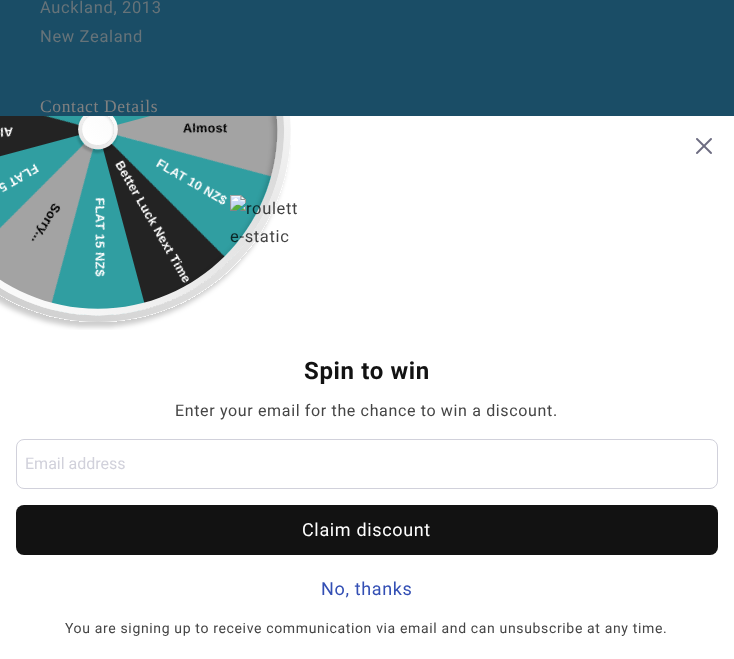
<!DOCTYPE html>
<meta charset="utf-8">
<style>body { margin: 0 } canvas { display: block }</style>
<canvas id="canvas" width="734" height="659"></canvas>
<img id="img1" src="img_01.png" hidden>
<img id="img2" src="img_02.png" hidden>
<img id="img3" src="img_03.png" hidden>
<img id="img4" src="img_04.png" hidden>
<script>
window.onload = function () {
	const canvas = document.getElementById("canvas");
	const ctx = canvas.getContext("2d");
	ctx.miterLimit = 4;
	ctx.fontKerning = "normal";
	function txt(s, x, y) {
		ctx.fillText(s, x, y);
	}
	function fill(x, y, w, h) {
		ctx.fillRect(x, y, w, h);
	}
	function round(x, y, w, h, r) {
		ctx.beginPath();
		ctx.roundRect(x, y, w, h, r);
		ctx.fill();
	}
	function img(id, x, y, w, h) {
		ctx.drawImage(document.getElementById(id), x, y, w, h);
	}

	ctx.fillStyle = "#1A4D66";
	fill(0, 0, 734, 659);
	ctx.fillStyle = "#FFFFFF";
	fill(0, 116, 734, 543);
	img("img1", 0, 116, 284, 200);
	img("img2", 0, 116, 291, 214);
	img("img3", 230, 195, 67, 48);
	img("img4", 696, 138, 16, 16);
	ctx.beginPath();
	ctx.roundRect(16.5, 439.5, 701, 49, 7.5);
	ctx.strokeStyle = "#D1D1DB";
	ctx.stroke();
	ctx.fillStyle = "#121212";
	round(16, 505, 702, 50, 8);
	ctx.letterSpacing = "0.65px";
	ctx.font = "16.5px Roboto";
	ctx.fillStyle = "#667379";
	txt("Auckland, 2013", 40, 13);
	txt("New Zealand", 40, 42);
	ctx.font = "17.5px Liberation Serif";
	ctx.fillStyle = "#808080";
	txt("Contact Details", 40, 112);
	ctx.font = "bold 24px Roboto";
	ctx.fillStyle = "#121212";
	txt("Spin to win", 304, 379);
	ctx.font = "16px Roboto";
	ctx.fillStyle = "#454545";
	txt("Enter your email for the chance to win a discount.", 175, 416);
	ctx.letterSpacing = "0px";
	ctx.fillStyle = "#D1D1DB";
	txt("Email address", 25, 469);
	ctx.letterSpacing = "0.65px";
	ctx.font = "18px Roboto";
	ctx.fillStyle = "#FFFFFF";
	txt("Claim discount", 302, 536);
	ctx.fillStyle = "#334FB4";
	txt("No, thanks", 321, 595);
	ctx.font = "14px Roboto";
	ctx.fillStyle = "#454545";
	txt("You are signing up to receive communication via email and can unsubscribe at any time.", 65, 633);
};
</script>
